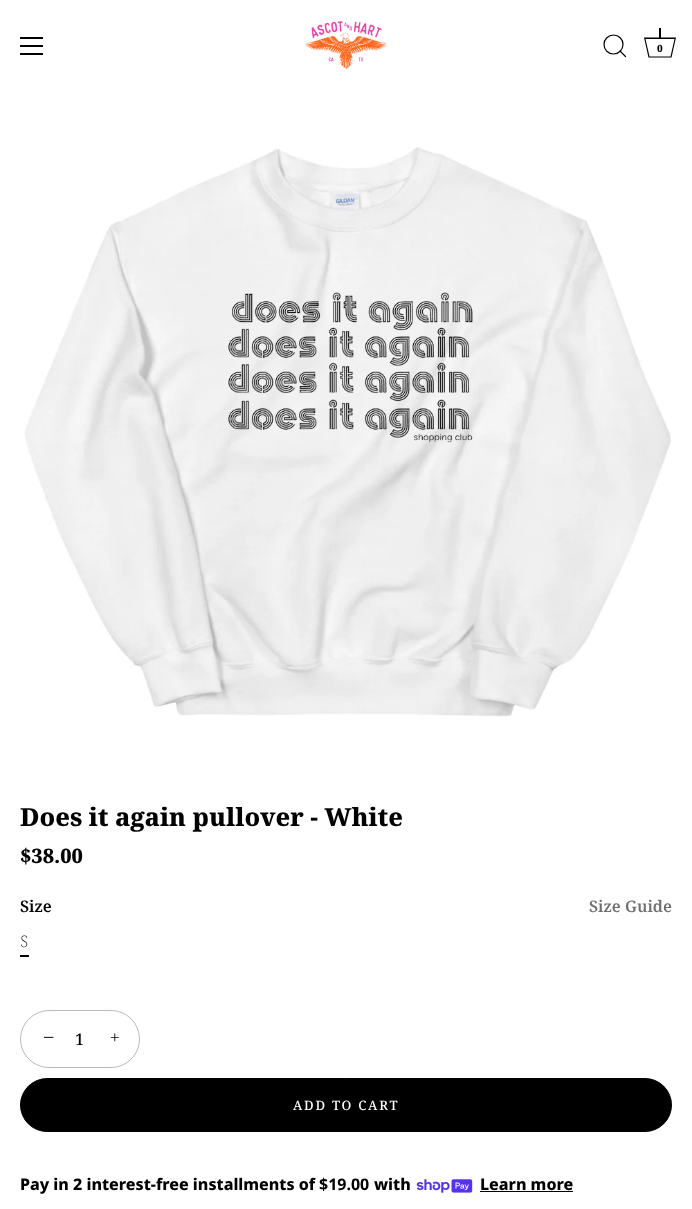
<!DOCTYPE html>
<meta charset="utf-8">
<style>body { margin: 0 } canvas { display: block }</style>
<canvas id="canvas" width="692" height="1209"></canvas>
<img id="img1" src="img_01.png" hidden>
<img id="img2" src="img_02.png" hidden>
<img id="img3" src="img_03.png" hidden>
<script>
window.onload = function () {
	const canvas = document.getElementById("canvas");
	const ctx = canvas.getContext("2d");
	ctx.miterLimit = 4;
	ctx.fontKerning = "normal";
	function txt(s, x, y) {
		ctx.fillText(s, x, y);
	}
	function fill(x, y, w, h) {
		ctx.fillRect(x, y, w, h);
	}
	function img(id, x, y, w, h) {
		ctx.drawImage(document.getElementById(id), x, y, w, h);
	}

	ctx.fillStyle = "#FFFFFF";
	fill(0, 0, 692, 1209);
	ctx.fillStyle = "#000000";
	fill(20, 37, 23, 2);
	fill(20, 45, 23, 2);
	fill(20, 53, 23, 2);
	img("img1", 305, 21, 82, 48);
	ctx.beginPath();
	ctx.arc(613.5, 44.5, 9.5, 0, Math.PI * 2);
	ctx.strokeStyle = "#000000";
	ctx.lineWidth = 1.2;
	ctx.stroke();
	ctx.beginPath();
	ctx.moveTo(625.5, 56.5);
	ctx.lineTo(620, 51);
	ctx.lineCap = "round";
	ctx.lineJoin = "round";
	ctx.stroke();
	ctx.beginPath();
	ctx.moveTo(674.5, 39);
	ctx.lineTo(670.5, 56.5);
	ctx.lineTo(649.5, 56.5);
	ctx.lineTo(645.5, 39);
	ctx.lineTo(674.5, 39);
	ctx.moveTo(676, 37.5);
	ctx.lineTo(644, 37.5);
	ctx.lineTo(648.5, 57.5);
	ctx.lineTo(671.5, 57.5);
	ctx.closePath();
	ctx.fill();
	fill(659, 28, 2, 10);
	img("img2", 24, 147, 647, 570);
	fill(20, 955, 9, 2);
	ctx.beginPath();
	ctx.roundRect(20.5, 1010.5, 119, 57, 28.5);
	ctx.strokeStyle = "#BBBBBB";
	ctx.lineWidth = 1;
	ctx.lineJoin = "miter";
	ctx.stroke();
	ctx.beginPath();
	ctx.roundRect(20.5, 1078.5, 651, 53, 26.5);
	ctx.fill();
	ctx.strokeStyle = "#000000";
	ctx.stroke();
	img("img3", 416, 1179, 57, 14);
	fill(480, 1191, 93, 1);
	ctx.font = "800 10px Noto Serif";
	txt("0", 657, 52);
	ctx.font = "800 25px Noto Serif";
	txt("Does it again pullover - White", 20, 826);
	ctx.font = "800 20px Noto Serif";
	txt("$38.00", 20, 863);
	ctx.font = "600 16px Noto Serif";
	txt("Size", 20, 912);
	ctx.fillStyle = "#6F6F6F";
	txt("Size Guide", 589, 912);
	ctx.font = "200 16px Noto Serif";
	ctx.fillStyle = "#000000";
	txt("S", 20, 947);
	ctx.font = "20px Liberation Serif";
	txt("−", 43, 1044);
	ctx.letterSpacing = "1px";
	ctx.font = "500 16px Noto Serif";
	txt("1", 75, 1045);
	ctx.letterSpacing = "0px";
	ctx.font = "17px Liberation Serif";
	txt("+", 110, 1043);
	ctx.letterSpacing = "1.75px";
	ctx.font = "500 13px Noto Serif";
	ctx.fillStyle = "#FFFFFF";
	txt("ADD TO CART", 293, 1110);
	ctx.letterSpacing = "0px";
	ctx.font = "800 16px Noto Sans";
	ctx.fillStyle = "#000000";
	txt("Pay in 2 interest-free installments of", 20, 1190);
	ctx.font = "bold 16px Noto Sans";
	txt("$19.00", 319, 1190);
	ctx.font = "800 16px Noto Sans";
	txt("with", 374, 1190);
	txt("Learn more", 480, 1190);
};
</script>
